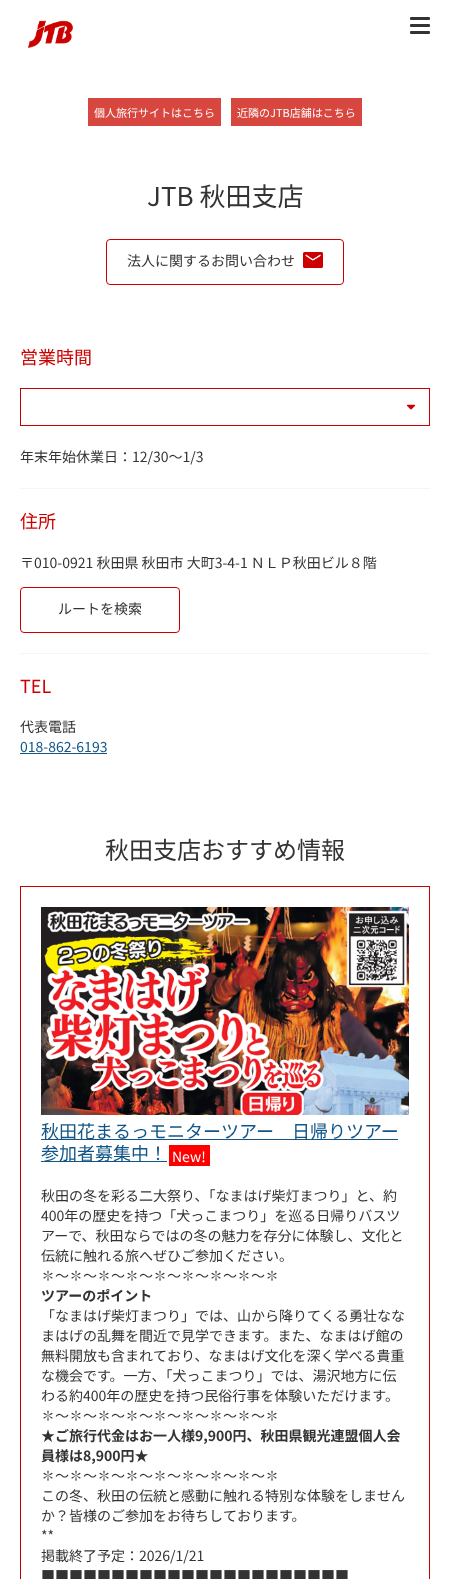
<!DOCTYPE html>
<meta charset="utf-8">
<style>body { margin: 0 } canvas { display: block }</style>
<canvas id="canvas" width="450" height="1579"></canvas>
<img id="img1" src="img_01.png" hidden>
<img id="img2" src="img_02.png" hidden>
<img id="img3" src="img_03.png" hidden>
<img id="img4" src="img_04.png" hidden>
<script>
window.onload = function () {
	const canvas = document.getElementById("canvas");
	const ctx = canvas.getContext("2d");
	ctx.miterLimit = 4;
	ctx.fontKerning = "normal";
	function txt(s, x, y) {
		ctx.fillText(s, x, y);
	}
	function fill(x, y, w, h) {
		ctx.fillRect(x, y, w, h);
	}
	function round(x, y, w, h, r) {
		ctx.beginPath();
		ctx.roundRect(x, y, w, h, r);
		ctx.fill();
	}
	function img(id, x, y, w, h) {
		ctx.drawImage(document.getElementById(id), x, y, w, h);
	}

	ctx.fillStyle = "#FFFFFF";
	fill(0, 0, 450, 1579);
	img("img1", 27, 20, 47, 28);
	ctx.fillStyle = "#333333";
	round(410, 17, 20, 3, 1);
	round(410, 24, 20, 3, 1);
	round(410, 31, 20, 3, 1);
	ctx.fillStyle = "#D7463F";
	fill(88, 98, 133, 28);
	fill(231, 98, 131, 28);
	ctx.beginPath();
	ctx.roundRect(106.5, 239.5, 237, 45, 3.5);
	ctx.strokeStyle = "#CC0000";
	ctx.stroke();
	img("img2", 303, 252, 20, 16);
	ctx.fillStyle = "#F5F5F5";
	fill(20, 488, 410, 1);
	ctx.strokeRect(20.5, 388.5, 409, 37);
	img("img3", 407, 404, 8, 6);
	fill(20, 653, 410, 1);
	ctx.beginPath();
	ctx.roundRect(20.5, 587.5, 159, 45, 3.5);
	ctx.stroke();
	ctx.fillStyle = "#125687";
	fill(20, 753, 87, 1);
	ctx.strokeRect(20.5, 886.5, 409, 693);
	img("img4", 41, 907, 368, 208);
	fill(41, 1139, 357, 1);
	fill(41, 1161, 126, 1);
	ctx.fillStyle = "#FF0000";
	fill(169, 1145, 41, 21);
	ctx.font = "11px Noto Sans JP";
	ctx.fillStyle = "#FFFFFF";
	txt("個人旅行サイトはこちら", 94, 117);
	txt("近隣のJTB店舗はこちら", 237, 117);
	ctx.font = "26px Noto Sans JP";
	ctx.fillStyle = "#333333";
	txt("JTB 秋田支店", 147, 206);
	ctx.font = "14px Noto Sans JP";
	txt("法人に関するお問い合わせ", 127, 266);
	ctx.font = "18px Noto Sans JP";
	ctx.fillStyle = "#CC0000";
	txt("営業時間", 20, 364);
	ctx.font = "14px Noto Sans JP";
	ctx.fillStyle = "#333333";
	txt("年末年始休業日：12/30～1/3", 20, 462);
	ctx.font = "18px Noto Sans JP";
	ctx.fillStyle = "#CC0000";
	txt("住所", 20, 528);
	ctx.font = "14px Noto Sans JP";
	ctx.fillStyle = "#333333";
	txt("〒010-0921 秋田県 秋田市 大町3-4-1 ＮＬＰ秋田ビル８階", 20, 568);
	txt("ルートを検索", 58, 614);
	ctx.font = "18px Noto Sans JP";
	ctx.fillStyle = "#CC0000";
	txt("TEL", 20, 693);
	ctx.font = "14px Noto Sans JP";
	ctx.fillStyle = "#333333";
	txt("代表電話", 20, 732);
	ctx.fillStyle = "#125687";
	txt("018-862-6193", 20, 752);
	ctx.font = "24px Noto Sans JP";
	ctx.fillStyle = "#333333";
	txt("秋田支店おすすめ情報", 105, 859);
	ctx.font = "18px Noto Sans JP";
	ctx.fillStyle = "#125687";
	txt("秋田花まるっモニターツアー　日帰りツアー", 41, 1138);
	txt("参加者募集中！", 41, 1160);
	ctx.font = "14px Noto Sans JP";
	ctx.fillStyle = "#FFFFFF";
	txt("New!", 172, 1162);
	ctx.fillStyle = "#333333";
	txt("秋田の冬を彩る二大祭り、「なまはげ柴灯まつり」と、約", 41, 1201);
	txt("400年の歴史を持つ「犬っこまつり」を巡る日帰りバスツ", 41, 1221);
	txt("アーで、秋田ならではの冬の魅力を存分に体験し、文化と", 41, 1241);
	txt("伝統に触れる旅へぜひご参加ください。", 41, 1261);
	txt("✽〜✽〜✽〜✽〜✽〜✽〜✽〜✽〜✽", 41, 1281);
	ctx.font = "bold 14px Noto Sans JP";
	txt("ツアーのポイント", 41, 1301);
	ctx.font = "14px Noto Sans JP";
	txt("「なまはげ柴灯まつり」では、山から降りてくる勇壮なな", 41, 1321);
	txt("まはげの乱舞を間近で見学できます。また、なまはげ館の", 41, 1341);
	txt("無料開放も含まれており、なまはげ文化を深く学べる貴重", 41, 1361);
	txt("な機会です。一方、「犬っこまつり」では、湯沢地方に伝", 41, 1381);
	txt("わる約400年の歴史を持つ民俗行事を体験いただけます。", 41, 1401);
	txt("✽〜✽〜✽〜✽〜✽〜✽〜✽〜✽〜✽", 41, 1421);
	ctx.font = "bold 14px Noto Sans JP";
	txt("★ご旅行代金はお一人様9,900円、秋田県観光連盟個人会", 41, 1441);
	txt("員様は8,900円★", 41, 1461);
	ctx.font = "14px Noto Sans JP";
	txt("✽〜✽〜✽〜✽〜✽〜✽〜✽〜✽〜✽", 41, 1481);
	txt("この冬、秋田の伝統と感動に触れる特別な体験をしません", 41, 1501);
	txt("か？皆様のご参加をお待ちしております。", 41, 1521);
	txt("**", 41, 1541);
	txt("掲載終了予定：2026/1/21", 41, 1561);
	txt("■■■■■■■■■■■■■■■■■■■■■■", 41, 1581);
};
</script>
